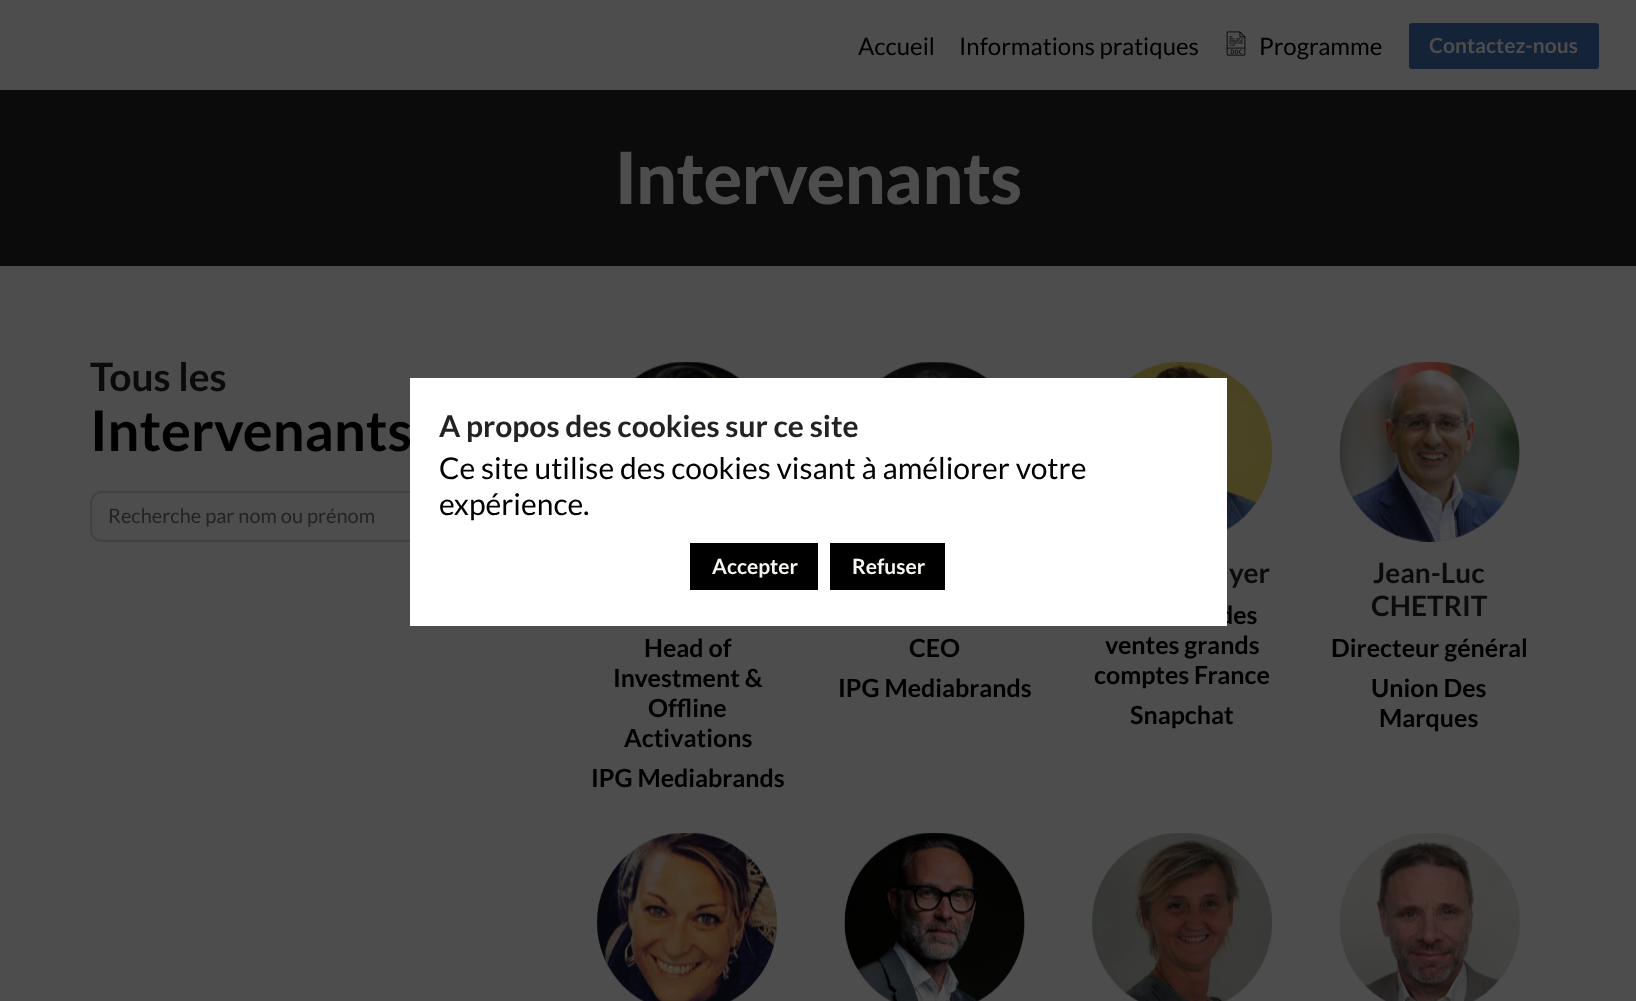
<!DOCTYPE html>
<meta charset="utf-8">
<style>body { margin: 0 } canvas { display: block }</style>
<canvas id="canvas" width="1636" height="1001"></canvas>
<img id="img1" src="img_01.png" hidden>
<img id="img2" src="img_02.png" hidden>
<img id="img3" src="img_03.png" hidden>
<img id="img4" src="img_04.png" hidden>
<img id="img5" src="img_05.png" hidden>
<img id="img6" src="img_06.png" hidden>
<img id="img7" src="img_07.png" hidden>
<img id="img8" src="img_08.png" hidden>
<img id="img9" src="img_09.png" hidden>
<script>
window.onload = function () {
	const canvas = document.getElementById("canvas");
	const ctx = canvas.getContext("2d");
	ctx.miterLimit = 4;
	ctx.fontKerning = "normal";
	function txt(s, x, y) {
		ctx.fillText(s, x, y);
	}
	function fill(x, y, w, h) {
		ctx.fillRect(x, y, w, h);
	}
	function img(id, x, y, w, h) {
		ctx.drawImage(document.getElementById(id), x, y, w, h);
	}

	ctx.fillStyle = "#0B0B0B";
	fill(0, 0, 1636, 1001);
	ctx.fillStyle = "#4D4D4D";
	fill(0, 0, 1636, 90);
	img("img1", 1226, 31, 20, 25);
	ctx.fillStyle = "#142337";
	ctx.beginPath();
	ctx.roundRect(1408, 22, 192, 48, 4);
	ctx.fill();
	ctx.strokeStyle = "#4D4D4D";
	ctx.lineWidth = 2;
	ctx.stroke();
	ctx.fillStyle = "#4D4D4D";
	fill(0, 266, 1636, 735);
	ctx.beginPath();
	ctx.roundRect(91, 492, 418, 49, 11);
	ctx.strokeStyle = "#424242";
	ctx.stroke();
	img("img2", 634, 362, 106, 16);
	ctx.fillStyle = "#464646";
	ctx.beginPath();
	ctx.arc(935, 452, 90, 0, Math.PI * 2);
	ctx.fill();
	img("img3", 882, 362, 105, 16);
	ctx.beginPath();
	ctx.arc(1182, 452, 90, 0, Math.PI * 2);
	ctx.fill();
	img("img4", 1129, 362, 143, 168);
	ctx.beginPath();
	ctx.arc(1430, 452, 90, 0, Math.PI * 2);
	ctx.fill();
	img("img5", 1339, 362, 181, 180);
	ctx.beginPath();
	ctx.arc(687, 923, 90, 0, Math.PI * 2);
	ctx.fill();
	img("img6", 597, 833, 180, 168);
	ctx.beginPath();
	ctx.arc(935, 923, 90, 0, Math.PI * 2);
	ctx.fill();
	img("img7", 844, 833, 181, 168);
	ctx.beginPath();
	ctx.arc(1182, 923, 90, 0, Math.PI * 2);
	ctx.fill();
	img("img8", 1092, 833, 180, 168);
	ctx.beginPath();
	ctx.arc(1430, 923, 90, 0, Math.PI * 2);
	ctx.fill();
	img("img9", 1339, 833, 180, 168);
	ctx.font = "24px Lato";
	ctx.fillStyle = "#000000";
	txt("Accueil", 858, 55);
	txt("Informations pratiques", 959, 55);
	txt("Programme", 1259, 55);
	ctx.font = "bold 21px Lato";
	ctx.fillStyle = "#4D4D4D";
	txt("Contactez-nous", 1429, 53);
	ctx.font = "900 72px Lato";
	txt("Intervenants", 615, 204);
	ctx.font = "bold 39px Lato";
	ctx.fillStyle = "#0B0B0B";
	txt("Tous les", 90, 391);
	ctx.font = "bold 56px Lato";
	ctx.fillStyle = "#000000";
	txt("Intervenants", 90, 451);
	ctx.font = "20px Lato";
	ctx.fillStyle = "#232323";
	txt("Recherche par nom ou prénom", 108, 523);
	ctx.font = "bold 25px Lato";
	ctx.fillStyle = "#000000";
	txt("Head of", 644, 657);
	txt("Investment &", 613, 687);
	txt("Offline", 648, 717);
	txt("Activations", 624, 747);
	txt("IPG Mediabrands", 591, 787);
	txt("CEO", 909, 657);
	txt("IPG Mediabrands", 838, 697);
	ctx.font = "bold 28px Lato";
	ctx.fillStyle = "#0B0B0B";
	txt("yer", 1229, 583);
	ctx.font = "bold 25px Lato";
	ctx.fillStyle = "#000000";
	txt("des", 1219, 624);
	txt("ventes grands", 1105, 654);
	txt("comptes France", 1094, 684);
	txt("Snapchat", 1130, 724);
	ctx.font = "bold 28px Lato";
	ctx.fillStyle = "#0B0B0B";
	txt("Jean-Luc", 1373, 583);
	txt("CHETRIT", 1371, 616);
	ctx.font = "bold 25px Lato";
	ctx.fillStyle = "#000000";
	txt("Directeur général", 1331, 657);
	txt("Union Des", 1371, 697);
	txt("Marques", 1379, 727);
	ctx.fillStyle = "#FFFFFF";
	fill(410, 378, 817, 248);
	ctx.font = "bold 30px Lato";
	ctx.fillStyle = "#232323";
	txt("A propos des cookies sur ce site", 439, 437);
	ctx.font = "30px Lato";
	ctx.fillStyle = "#000000";
	txt("Ce site utilise des cookies visant à améliorer votre", 439, 479);
	txt("expérience.", 439, 515);
	fill(690, 543, 128, 47);
	ctx.font = "bold 21px Lato";
	ctx.fillStyle = "#F7F6EF";
	txt("Accepter", 712, 574);
	ctx.fillStyle = "#000000";
	fill(830, 543, 115, 47);
	ctx.fillStyle = "#F7F6EF";
	txt("Refuser", 852, 574);
};
</script>
